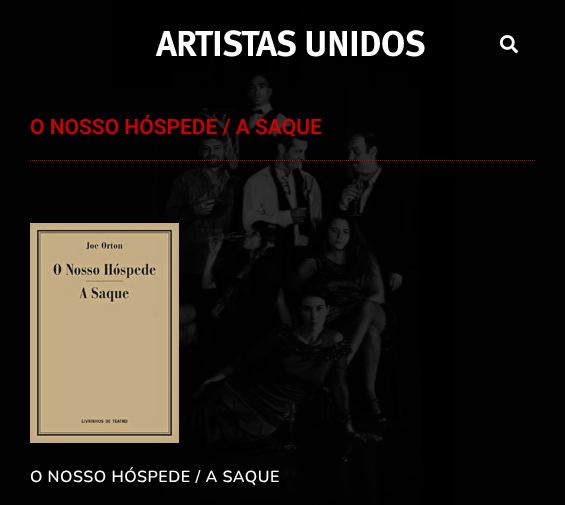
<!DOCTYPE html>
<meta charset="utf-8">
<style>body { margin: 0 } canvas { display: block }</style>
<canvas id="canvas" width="565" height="505"></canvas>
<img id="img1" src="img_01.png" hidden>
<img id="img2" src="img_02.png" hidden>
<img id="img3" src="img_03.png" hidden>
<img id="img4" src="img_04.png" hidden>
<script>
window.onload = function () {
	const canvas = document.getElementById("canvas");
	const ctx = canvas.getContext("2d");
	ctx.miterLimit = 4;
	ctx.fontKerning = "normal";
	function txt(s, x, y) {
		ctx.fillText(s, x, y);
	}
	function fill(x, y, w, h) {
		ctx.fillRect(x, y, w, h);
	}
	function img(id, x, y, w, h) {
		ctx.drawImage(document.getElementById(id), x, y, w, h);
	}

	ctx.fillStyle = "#FFFFFF";
	fill(0, 0, 565, 505);
	img("img1", 0, 0, 565, 505);
	ctx.fillStyle = "rgba(0, 0, 0, 0.86)";
	fill(0, 0, 565, 87);
	img("img2", 155, 30, 270, 27);
	img("img3", 499, 35, 19, 19);
	ctx.fillStyle = "rgba(0, 0, 0, 0.8)";
	fill(0, 87, 565, 106);
	ctx.beginPath();
	ctx.moveTo(30, 160.5);
	ctx.lineTo(535, 160.5);
	ctx.strokeStyle = "#CC0000";
	ctx.setLineDash([1, 1]);
	ctx.stroke();
	fill(0, 193, 565, 312);
	img("img4", 30, 223, 149, 220);
	ctx.font = "600 21px Roboto";
	ctx.fillStyle = "#CC0000";
	txt("O NOSSO HÓSPEDE / A SAQUE", 30, 134);
	ctx.letterSpacing = "0.5px";
	ctx.font = "600 16px Nunito";
	ctx.fillStyle = "#FFFFFF";
	txt("O NOSSO HÓSPEDE / A SAQUE", 30, 482);
};
</script>
